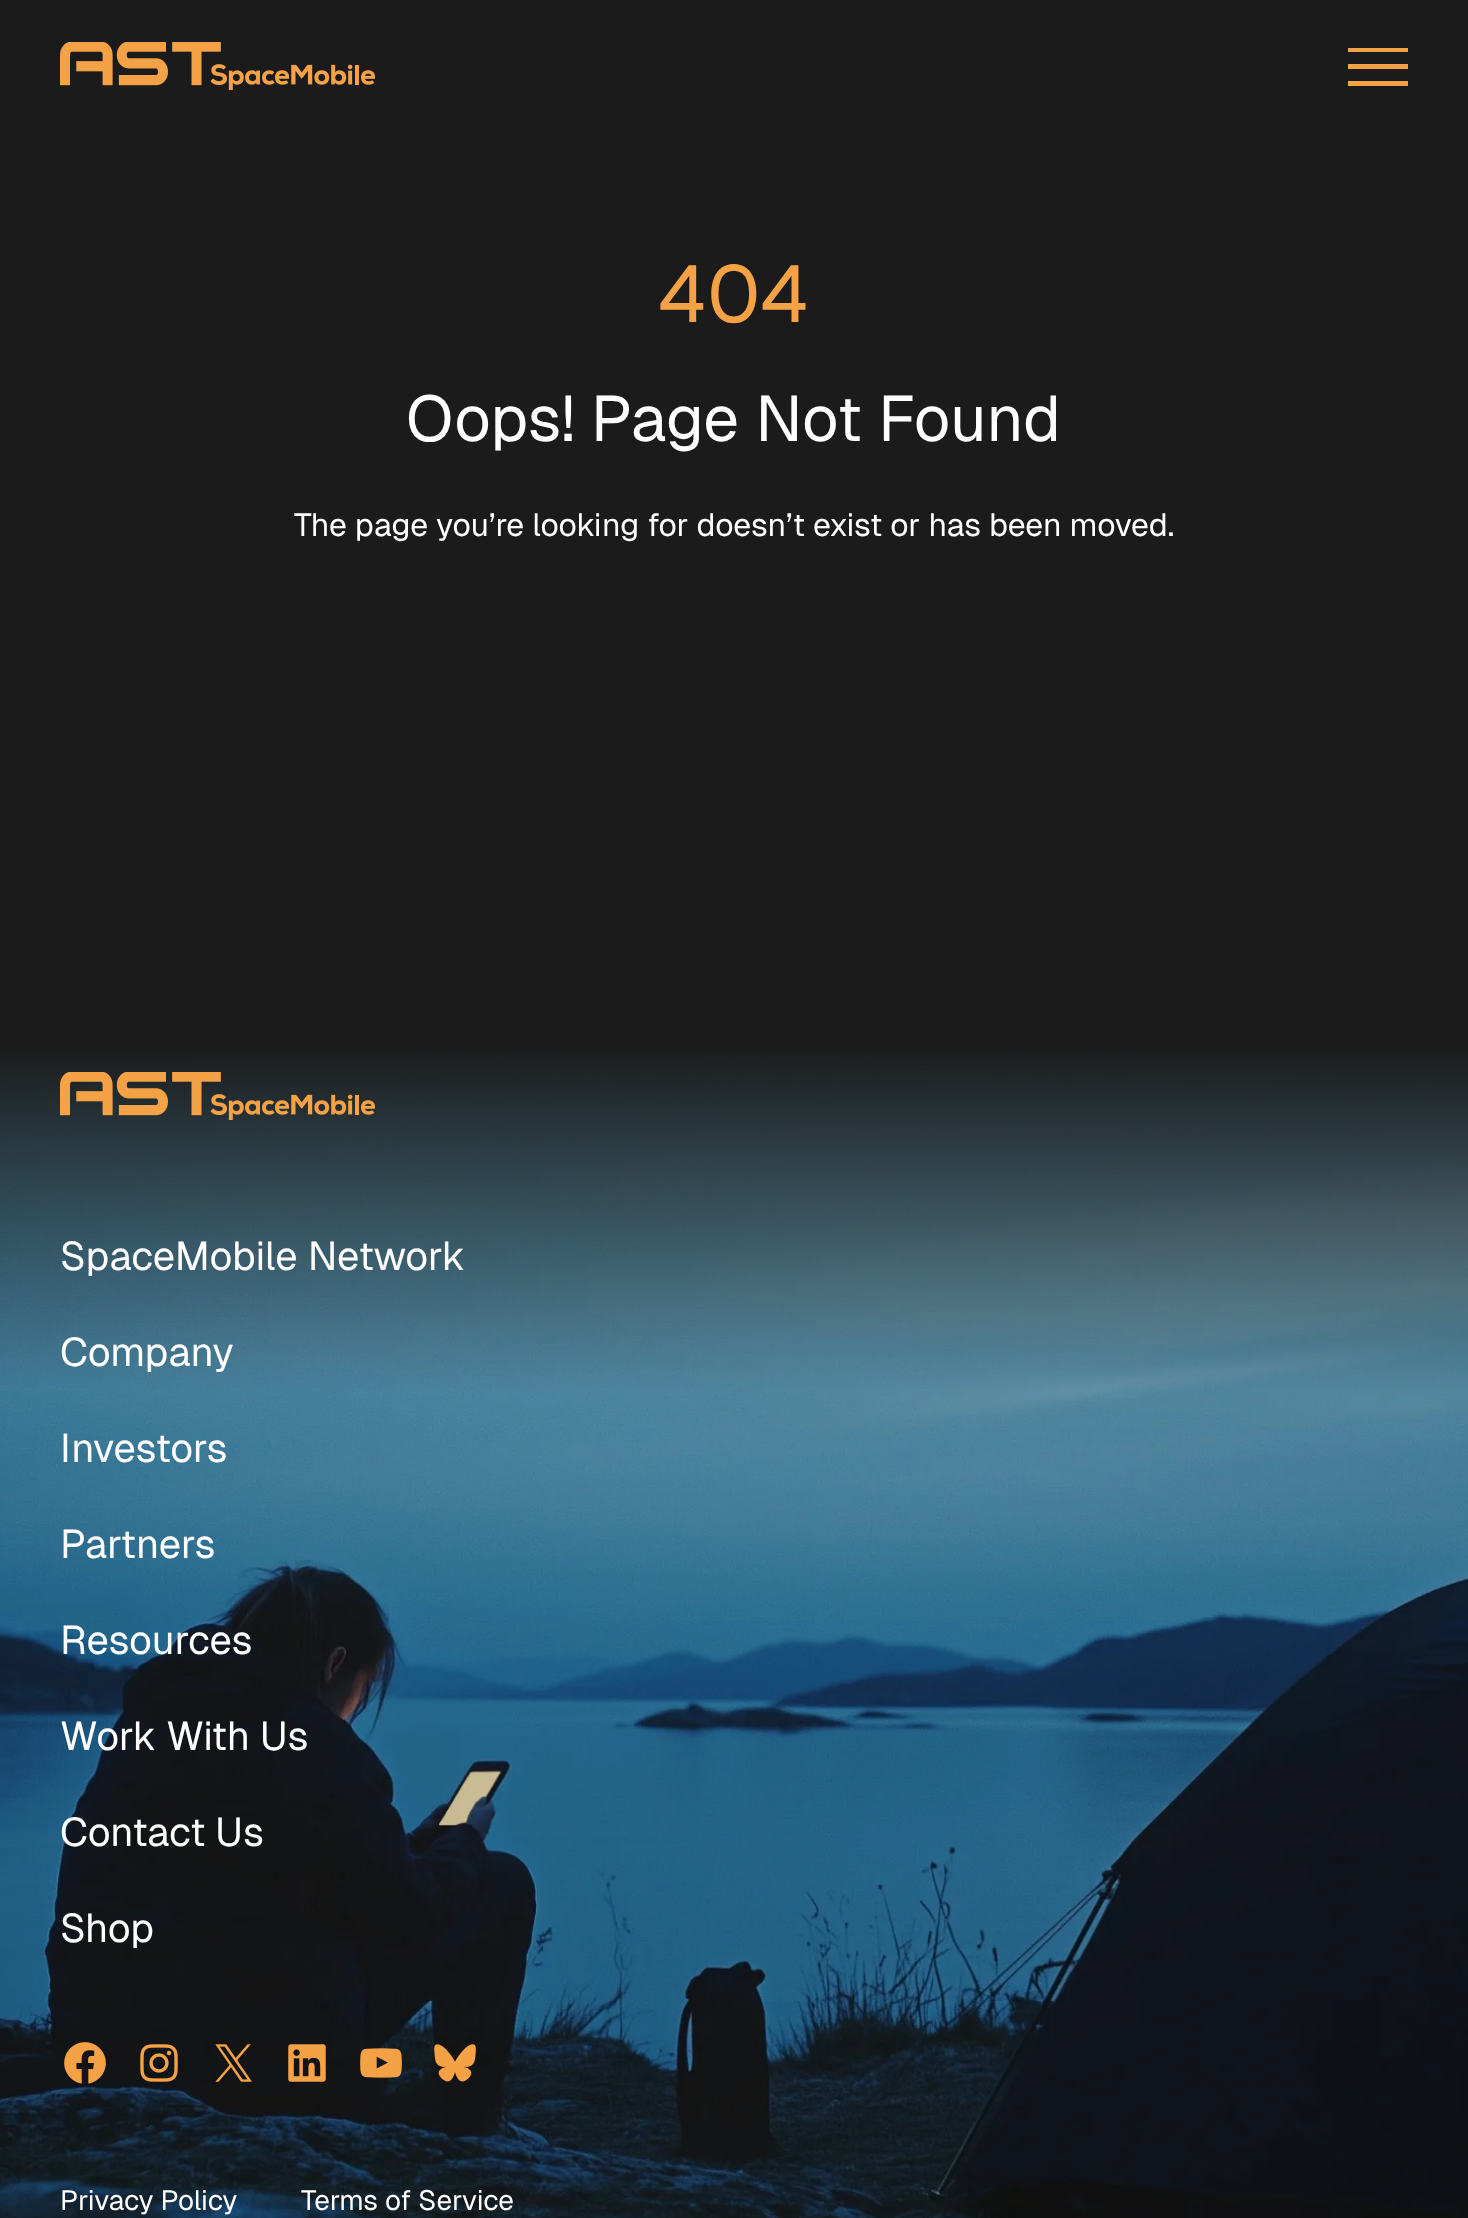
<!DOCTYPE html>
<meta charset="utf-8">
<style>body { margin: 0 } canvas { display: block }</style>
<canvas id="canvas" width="1468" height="2218"></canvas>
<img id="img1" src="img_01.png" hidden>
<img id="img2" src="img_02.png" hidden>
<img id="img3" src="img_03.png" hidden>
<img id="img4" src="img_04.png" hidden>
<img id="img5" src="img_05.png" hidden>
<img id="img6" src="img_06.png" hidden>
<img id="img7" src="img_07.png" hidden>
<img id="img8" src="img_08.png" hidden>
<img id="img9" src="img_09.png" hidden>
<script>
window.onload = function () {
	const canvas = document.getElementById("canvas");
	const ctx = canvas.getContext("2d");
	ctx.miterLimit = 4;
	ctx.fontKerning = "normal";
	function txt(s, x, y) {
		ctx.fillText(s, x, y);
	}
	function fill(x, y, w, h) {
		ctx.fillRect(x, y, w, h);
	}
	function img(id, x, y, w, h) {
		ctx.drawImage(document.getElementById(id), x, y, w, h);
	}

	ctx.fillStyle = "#1B1B1B";
	fill(0, 0, 1468, 2218);
	img("img1", 60, 42, 315, 48);
	ctx.fillStyle = "#F5A145";
	fill(1348, 48, 60, 4);
	fill(1348, 64, 60, 5);
	fill(1348, 81, 60, 5);
	img("img2", 0, 1052, 1468, 1166);
	img("img3", 60, 1072, 315, 48);
	img("img4", 64, 2042, 42, 42);
	img("img5", 140, 2044, 38, 38);
	img("img6", 215, 2044, 37, 38);
	img("img7", 288, 2044, 38, 38);
	img("img8", 360, 2048, 42, 30);
	img("img9", 434, 2044, 42, 38);
	ctx.font = "80px Geist";
	txt("404", 658, 322);
	ctx.font = "64px Geist";
	ctx.fillStyle = "#FFFFFF";
	txt("Oops! Page Not Found", 406, 441);
	ctx.font = "32px Geist";
	txt("The page you’re looking for doesn’t exist or has been moved.", 294, 536);
	ctx.font = "40px Geist";
	txt("SpaceMobile Network", 60, 1270);
	txt("Company", 60, 1366);
	txt("Investors", 60, 1462);
	txt("Partners", 60, 1558);
	txt("Resources", 60, 1654);
	txt("Work With Us", 60, 1750);
	txt("Contact Us", 60, 1846);
	txt("Shop", 60, 1942);
	ctx.font = "28px Geist";
	txt("Privacy Policy", 60, 2210);
	txt("Terms of Service", 301, 2210);
};
</script>
